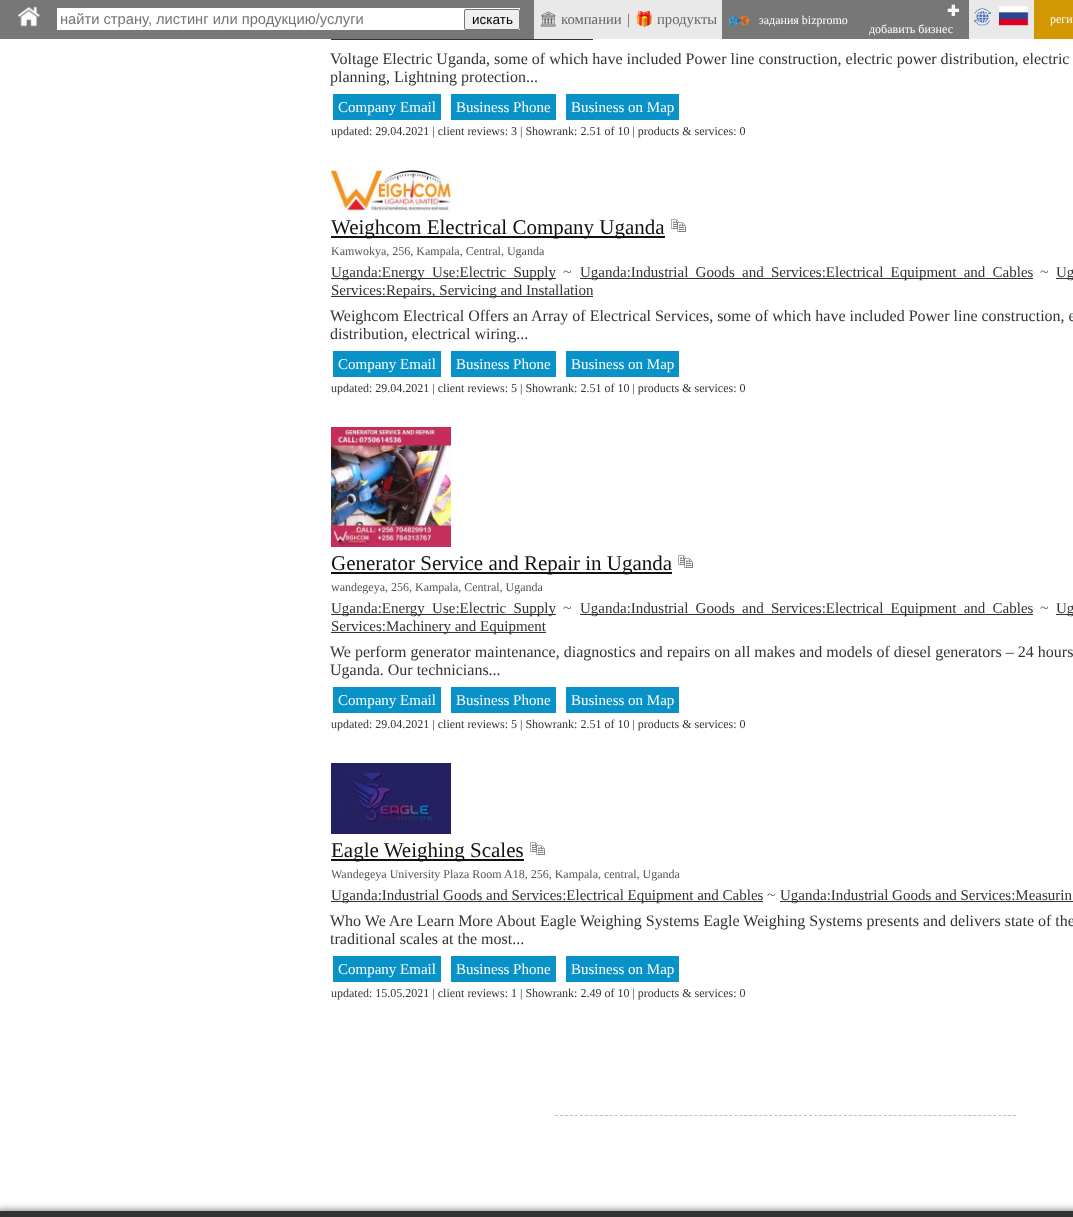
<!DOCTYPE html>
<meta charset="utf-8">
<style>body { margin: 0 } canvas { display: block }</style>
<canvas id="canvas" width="1073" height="1217"></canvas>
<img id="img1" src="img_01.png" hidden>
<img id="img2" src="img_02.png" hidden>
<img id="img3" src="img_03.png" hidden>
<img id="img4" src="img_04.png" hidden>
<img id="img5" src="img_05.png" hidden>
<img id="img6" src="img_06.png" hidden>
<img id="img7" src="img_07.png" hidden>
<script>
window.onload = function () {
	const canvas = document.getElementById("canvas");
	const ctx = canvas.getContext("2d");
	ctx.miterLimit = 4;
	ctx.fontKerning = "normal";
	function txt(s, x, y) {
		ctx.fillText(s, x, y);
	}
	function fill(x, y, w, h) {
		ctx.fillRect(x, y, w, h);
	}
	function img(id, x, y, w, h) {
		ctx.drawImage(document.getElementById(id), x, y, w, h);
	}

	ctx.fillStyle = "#FFFFFF";
	fill(0, 0, 1073, 1217);
	ctx.fillStyle = "#777777";
	fill(0, 0, 969, 39);
	img("img1", 17, 6, 23, 21);
	ctx.fillStyle = "#FFFFFF";
	fill(57, 8, 463, 22);
	ctx.fillStyle = "#EFEFEF";
	ctx.beginPath();
	ctx.roundRect(464.5, 9.5, 55, 20, 1.5);
	ctx.fill();
	ctx.strokeStyle = "#767676";
	ctx.stroke();
	ctx.fillStyle = "#E9E9E9";
	fill(534, 0, 188, 39);
	img("img2", 729, 16, 20, 9);
	fill(969, 0, 65, 39);
	img("img3", 974, 6, 55, 20);
	ctx.fillStyle = "#D39703";
	fill(1034, 0, 39, 39);
	ctx.fillStyle = "#333333";
	fill(331, 39, 262, 1);
	ctx.fillStyle = "#0992C8";
	fill(333, 94, 108, 26);
	fill(451, 94, 105, 26);
	fill(566, 94, 113, 26);
	img("img4", 331, 170, 120, 41);
	ctx.fillStyle = "#111111";
	fill(331, 236, 334, 2);
	img("img5", 671, 219, 15, 13);
	ctx.fillStyle = "#333333";
	fill(331, 278, 225, 1);
	fill(580, 278, 453, 1);
	fill(1056, 278, 17, 1);
	fill(331, 296, 262, 1);
	ctx.fillStyle = "#0992C8";
	fill(333, 351, 108, 26);
	fill(451, 351, 105, 26);
	fill(566, 351, 113, 26);
	img("img6", 331, 427, 120, 120);
	ctx.fillStyle = "#111111";
	fill(331, 572, 341, 2);
	img("img5", 678, 555, 15, 13);
	ctx.fillStyle = "#333333";
	fill(331, 614, 225, 1);
	fill(580, 614, 453, 1);
	fill(1056, 614, 17, 1);
	fill(331, 632, 215, 1);
	ctx.fillStyle = "#0992C8";
	fill(333, 687, 108, 26);
	fill(451, 687, 105, 26);
	fill(566, 687, 113, 26);
	img("img7", 331, 763, 120, 71);
	ctx.fillStyle = "#111111";
	fill(331, 859, 193, 2);
	img("img5", 530, 842, 15, 13);
	ctx.fillStyle = "#333333";
	fill(331, 901, 432, 1);
	fill(780, 901, 293, 1);
	ctx.fillStyle = "#0992C8";
	fill(333, 956, 108, 26);
	fill(451, 956, 105, 26);
	fill(566, 956, 113, 26);
	ctx.beginPath();
	ctx.moveTo(555, 1115.5);
	ctx.lineTo(1016, 1115.5);
	ctx.strokeStyle = "#C0C0C0";
	ctx.setLineDash([3, 1.98]);
	ctx.stroke();
	ctx.fillStyle = "#666666";
	ctx.filter = "blur(4.5px)";
	ctx.beginPath();
	ctx.rect(-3, 1211, 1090, 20);
	ctx.fill();
	ctx.filter = "none";
	ctx.fillStyle = "#333333";
	fill(0, 1211, 1073, 6);
	ctx.font = "14.7px Liberation Sans";
	ctx.fillStyle = "#757575";
	txt("найти страну, листинг или продукцию/услуги", 60, 24);
	ctx.font = "13.5px Liberation Sans";
	ctx.fillStyle = "#000000";
	txt("искать", 472, 24);
	ctx.font = "14.7px Noto Emoji";
	ctx.fillStyle = "#666666";
	txt("🏛", 539, 24);
	ctx.font = "14.7px Liberation Serif";
	txt("компании", 561, 24);
	txt("|", 627, 24);
	ctx.font = "14.7px Noto Color Emoji";
	txt("🎁", 635, 24);
	ctx.font = "14.7px Liberation Serif";
	txt("продукты", 657, 24);
	ctx.font = "12px Liberation Serif";
	ctx.fillStyle = "#FFFFFF";
	txt("задания bizpromo", 759, 24);
	ctx.font = "bold 14.7px DejaVu Sans";
	txt("✚", 947, 16);
	ctx.font = "12px Liberation Serif";
	txt("добавить бизнес", 869, 33);
	txt("реги", 1050, 23);
	ctx.font = "16px Liberation Serif";
	ctx.fillStyle = "#333333";
	txt("Voltage Electric Uganda, some of which have included Power line construction, electric power distribution, electric", 330, 64);
	txt("planning, Lightning protection...", 330, 82);
	ctx.font = "15px Liberation Serif";
	ctx.fillStyle = "#FFFFFF";
	txt("Company Email", 338, 112);
	txt("Business Phone", 456, 112);
	txt("Business on Map", 571, 112);
	ctx.font = "12px Liberation Serif";
	ctx.fillStyle = "#333333";
	txt("updated: 29.04.2021 | client reviews: 3 | Showrank: 2.51 of 10 | products & services: 0", 331, 135);
	ctx.font = "21px Liberation Serif";
	ctx.fillStyle = "#111111";
	txt("Weighcom Electrical Company Uganda", 331, 234);
	ctx.font = "12px Liberation Serif";
	ctx.fillStyle = "#555555";
	txt("Kamwokya, 256, Kampala, Central, Uganda", 331, 255);
	ctx.wordSpacing = "3.5px";
	ctx.font = "15px Liberation Serif";
	ctx.fillStyle = "#333333";
	txt("Uganda:Energy Use:Electric Supply", 331, 277);
	ctx.wordSpacing = "0px";
	ctx.font = "16px Liberation Serif";
	ctx.fillStyle = "#666666";
	txt("~", 563, 277);
	ctx.wordSpacing = "3.5px";
	ctx.font = "15px Liberation Serif";
	ctx.fillStyle = "#333333";
	txt("Uganda:Industrial Goods and Services:Electrical Equipment and Cables", 580, 277);
	ctx.wordSpacing = "0px";
	ctx.font = "16px Liberation Serif";
	ctx.fillStyle = "#666666";
	txt("~", 1040, 277);
	ctx.wordSpacing = "3.5px";
	ctx.font = "15px Liberation Serif";
	ctx.fillStyle = "#333333";
	txt("Ug", 1056, 277);
	ctx.wordSpacing = "0px";
	txt("Services:Repairs, Servicing and Installation", 331, 295);
	ctx.font = "16px Liberation Serif";
	txt("Weighcom Electrical Offers an Array of Electrical Services, some of which have included Power line construction, e", 330, 321);
	txt("distribution, electrical wiring...", 330, 339);
	ctx.font = "15px Liberation Serif";
	ctx.fillStyle = "#FFFFFF";
	txt("Company Email", 338, 369);
	txt("Business Phone", 456, 369);
	txt("Business on Map", 571, 369);
	ctx.font = "12px Liberation Serif";
	ctx.fillStyle = "#333333";
	txt("updated: 29.04.2021 | client reviews: 5 | Showrank: 2.51 of 10 | products & services: 0", 331, 392);
	ctx.font = "21px Liberation Serif";
	ctx.fillStyle = "#111111";
	txt("Generator Service and Repair in Uganda", 331, 570);
	ctx.font = "12px Liberation Serif";
	ctx.fillStyle = "#555555";
	txt("wandegeya, 256, Kampala, Central, Uganda", 331, 591);
	ctx.wordSpacing = "3.5px";
	ctx.font = "15px Liberation Serif";
	ctx.fillStyle = "#333333";
	txt("Uganda:Energy Use:Electric Supply", 331, 613);
	ctx.wordSpacing = "0px";
	ctx.font = "16px Liberation Serif";
	ctx.fillStyle = "#666666";
	txt("~", 563, 613);
	ctx.wordSpacing = "3.5px";
	ctx.font = "15px Liberation Serif";
	ctx.fillStyle = "#333333";
	txt("Uganda:Industrial Goods and Services:Electrical Equipment and Cables", 580, 613);
	ctx.wordSpacing = "0px";
	ctx.font = "16px Liberation Serif";
	ctx.fillStyle = "#666666";
	txt("~", 1040, 613);
	ctx.wordSpacing = "3.5px";
	ctx.font = "15px Liberation Serif";
	ctx.fillStyle = "#333333";
	txt("Ug", 1056, 613);
	ctx.wordSpacing = "0px";
	txt("Services:Machinery and Equipment", 331, 631);
	ctx.font = "16px Liberation Serif";
	txt("We perform generator maintenance, diagnostics and repairs on all makes and models of diesel generators – 24 hours", 330, 657);
	txt("Uganda. Our technicians...", 330, 675);
	ctx.font = "15px Liberation Serif";
	ctx.fillStyle = "#FFFFFF";
	txt("Company Email", 338, 705);
	txt("Business Phone", 456, 705);
	txt("Business on Map", 571, 705);
	ctx.font = "12px Liberation Serif";
	ctx.fillStyle = "#333333";
	txt("updated: 29.04.2021 | client reviews: 5 | Showrank: 2.51 of 10 | products & services: 0", 331, 728);
	ctx.font = "21px Liberation Serif";
	ctx.fillStyle = "#111111";
	txt("Eagle Weighing Scales", 331, 857);
	ctx.font = "12px Liberation Serif";
	ctx.fillStyle = "#555555";
	txt("Wandegeya University Plaza Room A18, 256, Kampala, central, Uganda", 331, 878);
	ctx.font = "15px Liberation Serif";
	ctx.fillStyle = "#333333";
	txt("Uganda:Industrial Goods and Services:Electrical Equipment and Cables", 331, 900);
	ctx.font = "16px Liberation Serif";
	ctx.fillStyle = "#666666";
	txt("~", 767, 900);
	ctx.font = "15px Liberation Serif";
	ctx.fillStyle = "#333333";
	txt("Uganda:Industrial Goods and Services:Measurin", 780, 900);
	ctx.font = "16px Liberation Serif";
	txt("Who We Are Learn More About Eagle Weighing Systems Eagle Weighing Systems presents and delivers state of the", 330, 926);
	txt("traditional scales at the most...", 330, 944);
	ctx.font = "15px Liberation Serif";
	ctx.fillStyle = "#FFFFFF";
	txt("Company Email", 338, 974);
	txt("Business Phone", 456, 974);
	txt("Business on Map", 571, 974);
	ctx.font = "12px Liberation Serif";
	ctx.fillStyle = "#333333";
	txt("updated: 15.05.2021 | client reviews: 1 | Showrank: 2.49 of 10 | products & services: 0", 331, 997);
};
</script>
